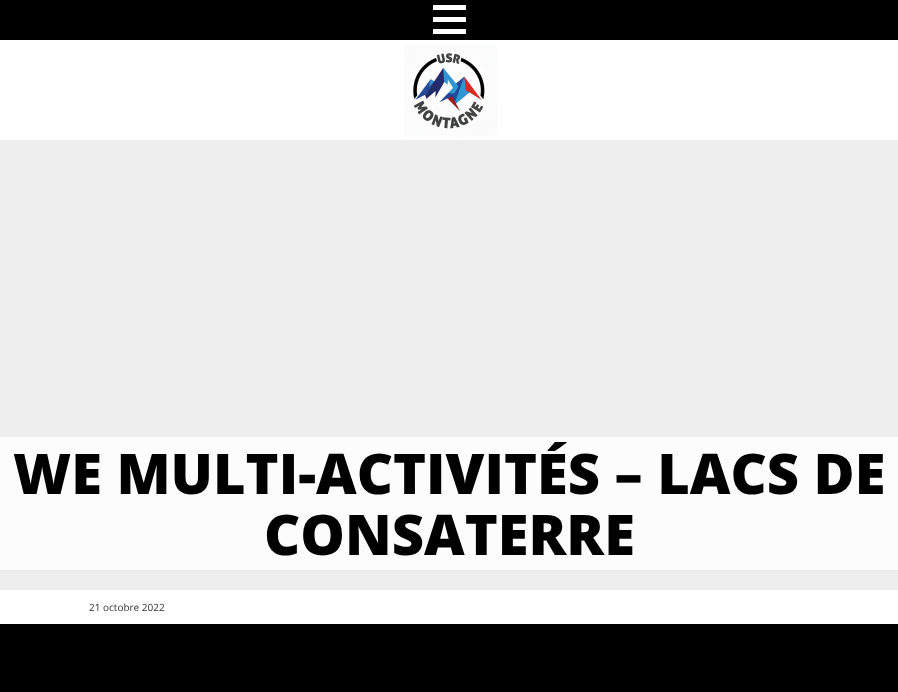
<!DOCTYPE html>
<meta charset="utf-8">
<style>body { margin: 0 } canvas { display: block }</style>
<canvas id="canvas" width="898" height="692"></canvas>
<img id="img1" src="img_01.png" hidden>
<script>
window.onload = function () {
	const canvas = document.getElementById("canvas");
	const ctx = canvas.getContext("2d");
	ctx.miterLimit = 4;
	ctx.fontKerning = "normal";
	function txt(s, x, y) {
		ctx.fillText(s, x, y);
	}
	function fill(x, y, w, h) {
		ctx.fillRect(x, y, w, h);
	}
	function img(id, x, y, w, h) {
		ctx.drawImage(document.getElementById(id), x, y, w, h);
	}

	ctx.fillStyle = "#FFFFFF";
	fill(0, 0, 898, 692);
	ctx.fillStyle = "#000000";
	fill(0, 0, 898, 40);
	ctx.fillStyle = "#FFFFFF";
	fill(433, 17, 33, 5);
	fill(433, 5, 33, 5);
	fill(433, 29, 33, 5);
	img("img1", 404, 44, 94, 93);
	ctx.fillStyle = "#EEEEEE";
	fill(0, 140, 898, 450);
	ctx.fillStyle = "#FCFCFC";
	fill(0, 437, 898, 133);
	ctx.fillStyle = "#000000";
	fill(0, 624, 898, 68);
	ctx.font = "800 56px Open Sans";
	txt("WE MULTI-ACTIVITÉS – LACS DE", 13, 494);
	txt("CONSATERRE", 264, 555);
	ctx.font = "10px Open Sans";
	ctx.fillStyle = "#333333";
	txt("21 octobre 2022", 89, 611);
};
</script>
